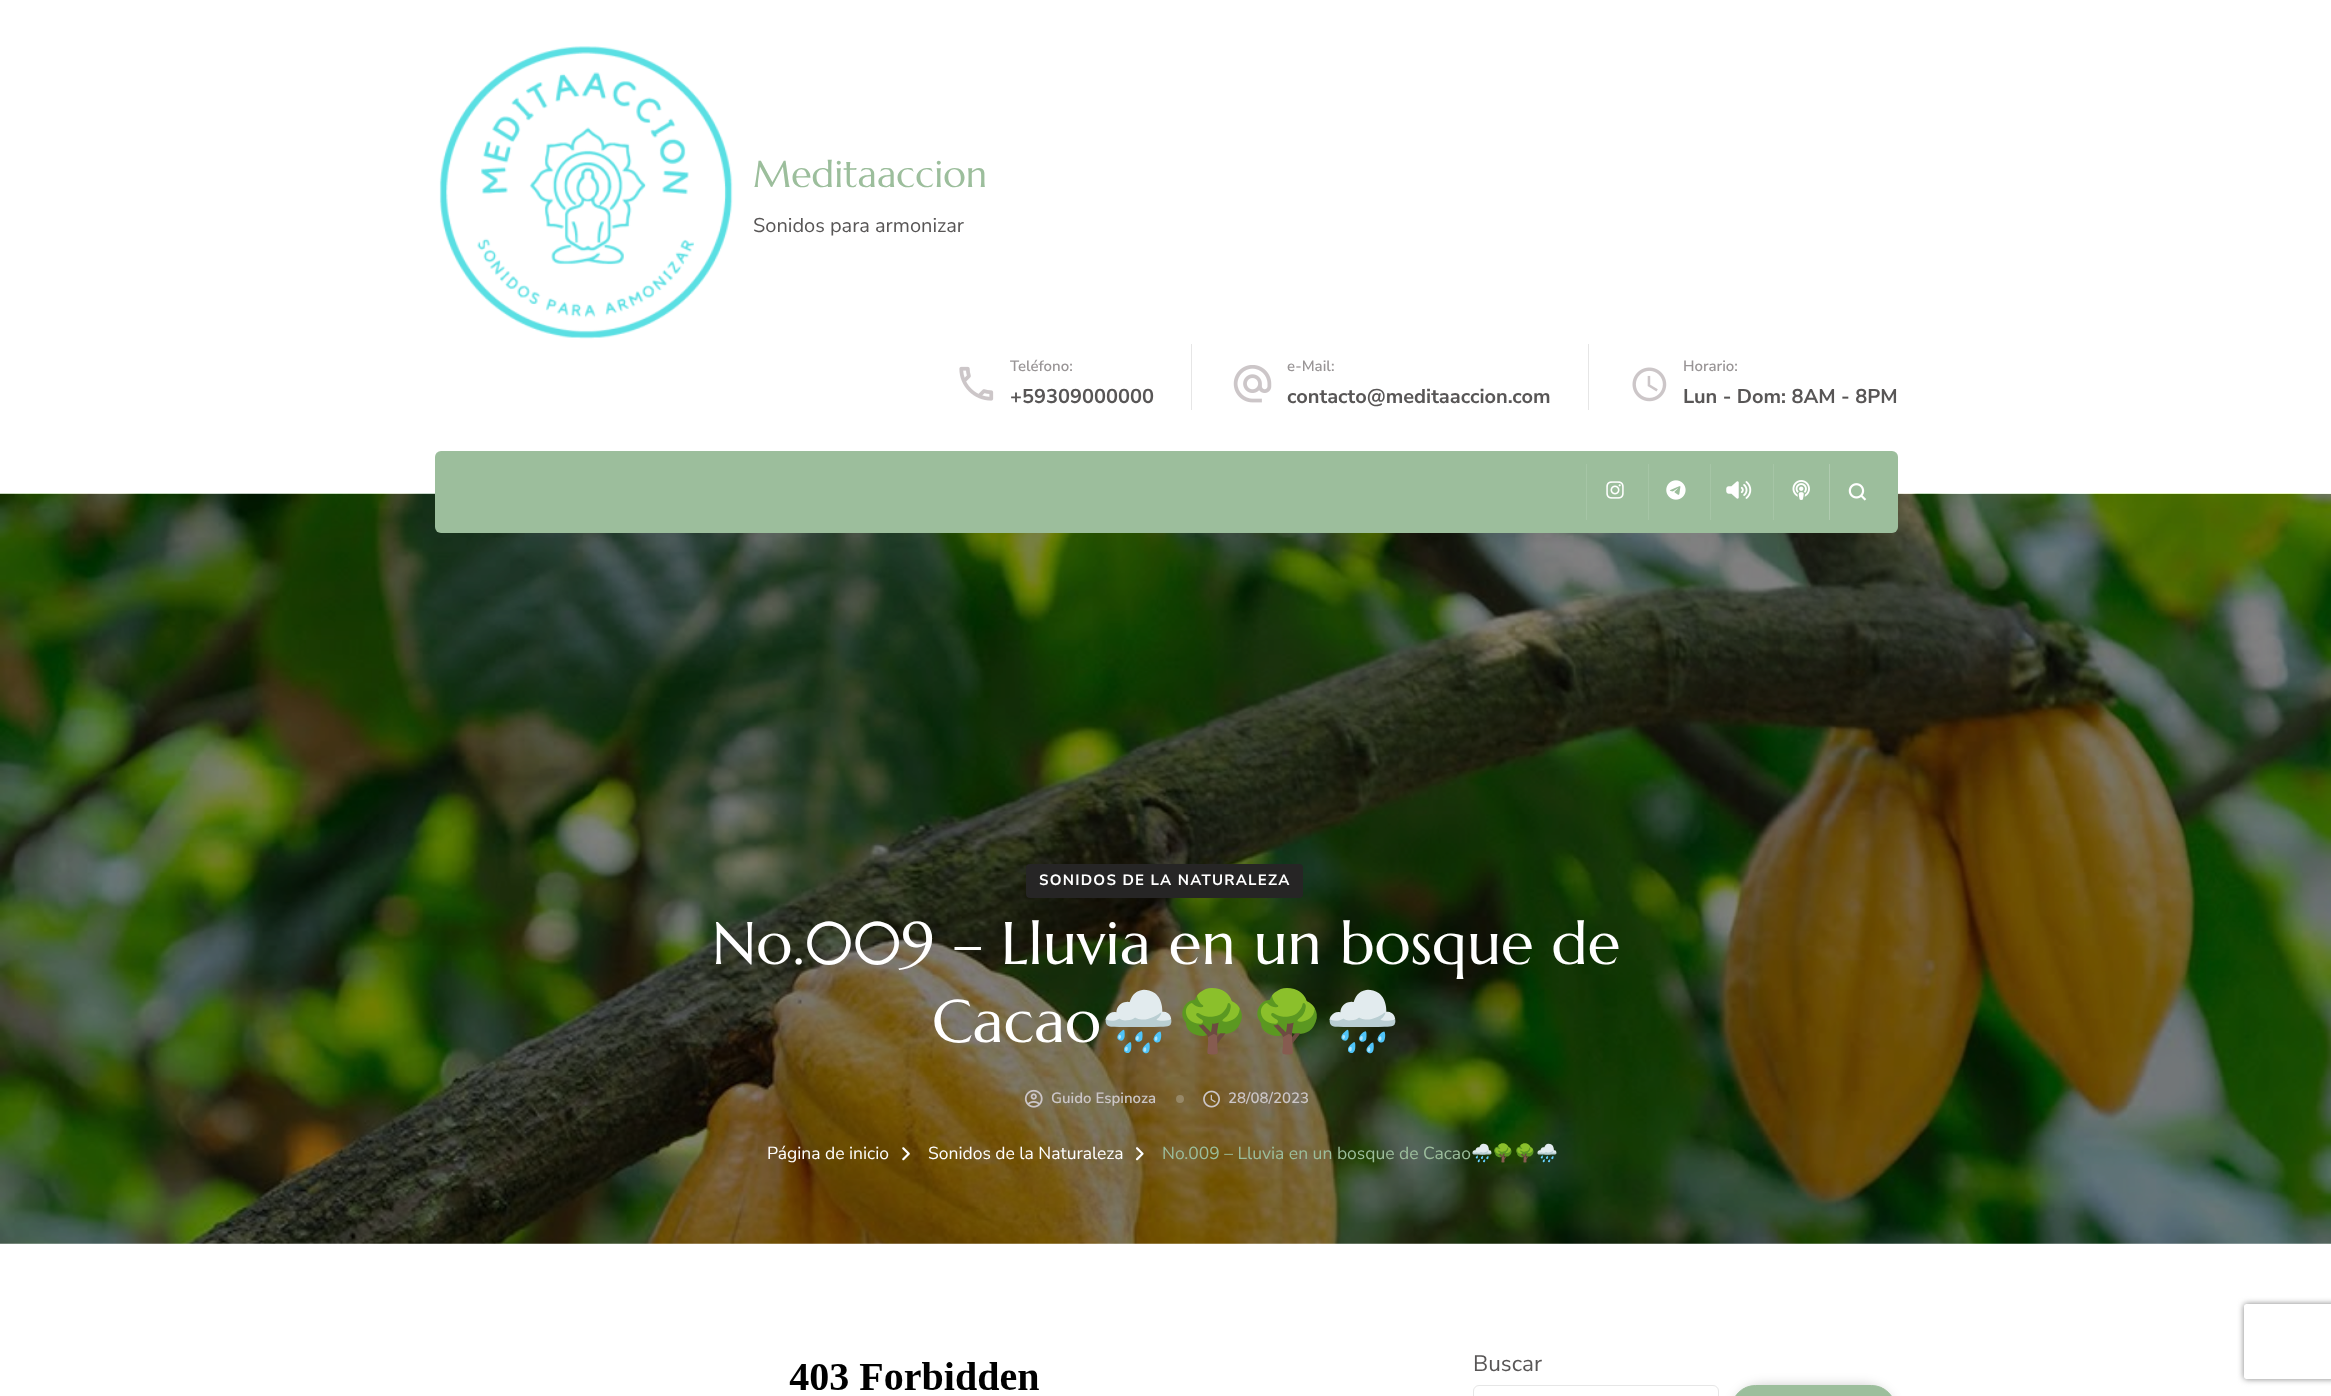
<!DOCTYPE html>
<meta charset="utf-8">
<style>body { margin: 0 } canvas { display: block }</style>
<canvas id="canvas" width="2331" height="1396"></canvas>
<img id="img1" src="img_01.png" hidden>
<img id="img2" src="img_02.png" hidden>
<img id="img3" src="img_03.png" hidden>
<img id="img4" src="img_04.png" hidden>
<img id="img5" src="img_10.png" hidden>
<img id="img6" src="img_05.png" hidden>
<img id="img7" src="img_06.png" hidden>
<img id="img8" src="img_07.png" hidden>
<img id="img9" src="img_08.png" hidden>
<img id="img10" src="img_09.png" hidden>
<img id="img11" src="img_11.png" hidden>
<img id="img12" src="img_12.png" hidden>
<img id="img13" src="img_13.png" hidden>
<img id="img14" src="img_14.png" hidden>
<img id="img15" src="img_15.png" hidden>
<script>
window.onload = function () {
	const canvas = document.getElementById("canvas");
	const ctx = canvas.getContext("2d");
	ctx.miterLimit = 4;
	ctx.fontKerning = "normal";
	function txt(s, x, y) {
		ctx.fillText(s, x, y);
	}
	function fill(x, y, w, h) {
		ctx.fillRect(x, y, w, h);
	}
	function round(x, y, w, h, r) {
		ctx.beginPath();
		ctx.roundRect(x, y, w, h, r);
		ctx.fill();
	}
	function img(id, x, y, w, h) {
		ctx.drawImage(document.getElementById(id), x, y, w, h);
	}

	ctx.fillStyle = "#FFFFFF";
	fill(0, 0, 2331, 1396);
	img("img1", 439, 46, 294, 293);
	img("img2", 959, 366, 35, 35);
	ctx.fillStyle = "#E6E6E6";
	fill(1191, 344, 1, 66);
	img("img3", 1233, 365, 39, 38);
	fill(1588, 344, 1, 66);
	img("img4", 1632, 367, 35, 35);
	img("img5", 0, 493, 2331, 751);
	ctx.fillStyle = "#9CBE9C";
	round(435, 451, 1463, 82, 6);
	ctx.fillStyle = "#A6C5A6";
	fill(1586, 464, 1, 56);
	img("img6", 1606, 481, 18, 18);
	fill(1648, 464, 1, 56);
	img("img7", 1666, 480, 20, 20);
	fill(1710, 464, 1, 56);
	img("img8", 1726, 481, 26, 18);
	fill(1773, 464, 1, 56);
	img("img9", 1792, 480, 18, 20);
	ctx.fillStyle = "#B0CBB0";
	fill(1829, 464, 1, 56);
	img("img10", 1848, 483, 19, 18);
	ctx.fillStyle = "#262525";
	round(1026, 864, 277, 34, 4);
	img("img11", 1024, 1089, 19, 19);
	ctx.fillStyle = "rgba(240, 240, 240, 0.25)";
	ctx.beginPath();
	ctx.arc(1180, 1099, 4, 0, Math.PI * 2);
	ctx.fill();
	img("img12", 1203, 1090, 17, 18);
	img("img13", 902, 1147, 8, 14);
	img("img14", 1135, 1147, 9, 14);
	img("img15", 789, 1362, 250, 28);
	ctx.beginPath();
	ctx.roundRect(1473.5, 1385.5, 245, 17, 5.5);
	ctx.strokeStyle = "#E6E6E6";
	ctx.stroke();
	ctx.fillStyle = "rgba(0, 0, 0, 0.2)";
	ctx.filter = "blur(6px)";
	ctx.beginPath();
	ctx.roundRect(1731, 1385, 165, 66, 36.5);
	ctx.fill();
	ctx.filter = "none";
	ctx.fillStyle = "#9CBE9C";
	ctx.beginPath();
	ctx.roundRect(1731.5, 1385.5, 164, 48, 36);
	ctx.fill();
	ctx.strokeStyle = "#9CBE9C";
	ctx.stroke();
	ctx.save();
	ctx.beginPath();
	ctx.moveTo(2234, 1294);
	ctx.lineTo(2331, 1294);
	ctx.lineTo(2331, 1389);
	ctx.lineTo(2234, 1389);
	ctx.closePath();
	ctx.moveTo(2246.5, 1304);
	ctx.lineTo(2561.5, 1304);
	ctx.bezierCurveTo(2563, 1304, 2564, 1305, 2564, 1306.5);
	ctx.lineTo(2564, 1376.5);
	ctx.bezierCurveTo(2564, 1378, 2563, 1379, 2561.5, 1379);
	ctx.lineTo(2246.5, 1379);
	ctx.bezierCurveTo(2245, 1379, 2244, 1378, 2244, 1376.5);
	ctx.lineTo(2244, 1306.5);
	ctx.bezierCurveTo(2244, 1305, 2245, 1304, 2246.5, 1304);
	ctx.closePath();
	ctx.clip("evenodd");
	ctx.fillStyle = "#808080";
	ctx.filter = "blur(3px)";
	ctx.beginPath();
	ctx.roundRect(2244, 1304, 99, 75, 2.5);
	ctx.fill();
	ctx.filter = "none";
	ctx.restore();
	ctx.font = "37.5px Marcellus";
	txt("Meditaaccion", 753, 187);
	ctx.font = "20px Nunito Sans";
	ctx.fillStyle = "#585656";
	txt("Sonidos para armonizar", 753, 232);
	ctx.font = "600 15px Nunito Sans";
	ctx.fillStyle = "#999596";
	txt("Teléfono:", 1010, 371);
	ctx.font = "bold 20px Nunito Sans";
	ctx.fillStyle = "#585656";
	txt("+59309000000", 1010, 403);
	ctx.font = "600 15px Nunito Sans";
	ctx.fillStyle = "#999596";
	txt("e-Mail:", 1287, 371);
	ctx.font = "bold 20px Nunito Sans";
	ctx.fillStyle = "#585656";
	txt("contacto@meditaaccion.com", 1287, 403);
	ctx.font = "600 15px Nunito Sans";
	ctx.fillStyle = "#999596";
	txt("Horario:", 1683, 371);
	ctx.font = "bold 20px Nunito Sans";
	ctx.fillStyle = "#585656";
	txt("Lun - Dom: 8AM - 8PM", 1683, 403);
	ctx.letterSpacing = "1.25px";
	ctx.font = "bold 15px Nunito Sans";
	ctx.fillStyle = "#FFFFFF";
	txt("SONIDOS DE LA NATURALEZA", 1039, 885);
	ctx.letterSpacing = "0px";
	ctx.font = "60px Marcellus";
	txt("No.009 – Lluvia en un bosque de", 712, 964);
	txt("Cacao", 932, 1042);
	ctx.font = "60px Noto Color Emoji";
	txt("🌧️🌳🌳🌧️", 1101, 1042);
	ctx.font = "600 15px Nunito Sans";
	ctx.fillStyle = "#CCC6C8";
	txt("Guido Espinoza", 1051, 1103);
	txt("28/08/2023", 1228, 1103);
	ctx.font = "17.5px Nunito Sans";
	ctx.fillStyle = "#FFFFFF";
	txt("Página de inicio", 767, 1159);
	txt("Sonidos de la Naturaleza", 928, 1159);
	ctx.fillStyle = "#9CBE9C";
	txt("No.009 – Lluvia en un bosque de Cacao", 1162, 1159);
	ctx.font = "17.5px Noto Color Emoji";
	txt("🌧️🌳🌳🌧️", 1471, 1159);
	ctx.font = "22.5px Nunito Sans";
	ctx.fillStyle = "#585656";
	txt("Buscar", 1473, 1371);
};
</script>
